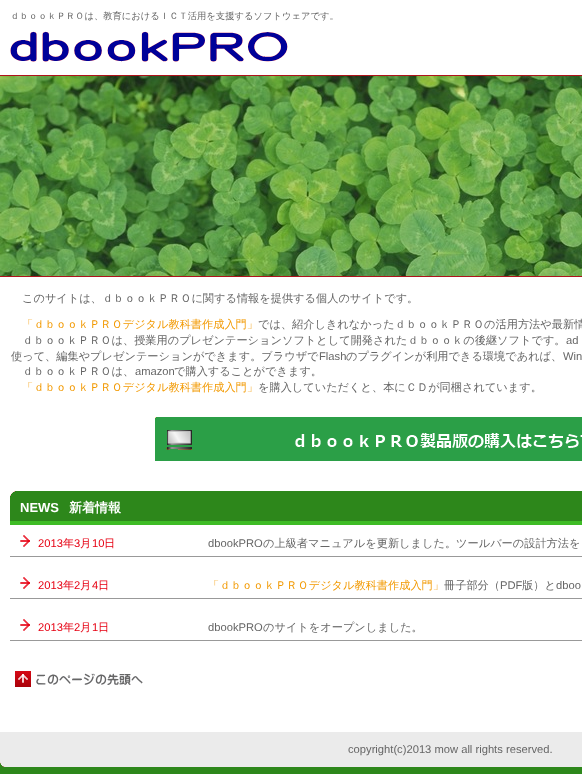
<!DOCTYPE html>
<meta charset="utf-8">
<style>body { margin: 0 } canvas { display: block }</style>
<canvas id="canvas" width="582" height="774"></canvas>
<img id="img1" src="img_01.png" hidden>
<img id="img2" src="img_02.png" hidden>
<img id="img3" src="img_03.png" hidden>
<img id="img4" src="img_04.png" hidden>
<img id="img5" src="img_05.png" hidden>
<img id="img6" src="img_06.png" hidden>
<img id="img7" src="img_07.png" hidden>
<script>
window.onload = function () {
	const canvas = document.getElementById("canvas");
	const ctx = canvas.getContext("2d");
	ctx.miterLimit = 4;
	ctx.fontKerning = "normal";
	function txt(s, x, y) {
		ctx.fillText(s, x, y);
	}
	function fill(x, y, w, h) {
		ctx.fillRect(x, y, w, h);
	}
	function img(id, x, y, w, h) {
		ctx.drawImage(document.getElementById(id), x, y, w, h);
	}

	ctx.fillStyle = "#2D871B";
	fill(0, 0, 582, 774);
	ctx.fillStyle = "#FFFFFF";
	fill(0, 0, 582, 75);
	img("img1", 10, 31, 278, 31);
	fill(0, 277, 582, 455);
	img("img2", 0, 76, 582, 200);
	ctx.fillStyle = "#AF131B";
	fill(0, 75, 582, 1);
	fill(0, 276, 582, 1);
	img("img3", 155, 417, 427, 44);
	img("img4", 10, 491, 572, 34);
	img("img5", 20, 535, 10, 12);
	ctx.fillStyle = "#999999";
	fill(10, 556, 572, 1);
	img("img5", 20, 577, 10, 12);
	fill(10, 598, 572, 1);
	img("img5", 20, 619, 10, 12);
	fill(10, 640, 572, 1);
	img("img6", 15, 671, 128, 16);
	img("img7", 0, 732, 582, 35);
	ctx.font = "500 9.3px WenQuanYi Zen Hei";
	ctx.fillStyle = "#666666";
	txt("ｄｂｏｏｋＰＲＯは、教育におけるＩＣＴ活用を支援するソフトウェアです。", 10, 19);
	ctx.font = "500 11.2px WenQuanYi Zen Hei";
	txt("このサイトは、ｄｂｏｏｋＰＲＯに関する情報を提供する個人のサイトです。", 22, 302);
	ctx.fillStyle = "#F29900";
	txt("「ｄｂｏｏｋＰＲＯデジタル教科書作成入門」", 22, 328);
	ctx.fillStyle = "#666666";
	txt("では、紹介しきれなかったｄｂｏｏｋＰＲＯの活用方法や最新情", 258, 328);
	txt("ｄｂｏｏｋＰＲＯは、授業用のプレゼンテーションソフトとして開発されたｄｂｏｏｋの後継ソフトです。", 22, 344);
	ctx.font = "11.2px Liberation Sans";
	txt("ad", 566, 344);
	ctx.font = "500 11.2px WenQuanYi Zen Hei";
	txt("使って、編集やプレゼンテーションができます。ブラウザで", 11, 360);
	ctx.font = "11.2px Liberation Sans";
	txt("Flash", 319, 360);
	ctx.font = "500 11.2px WenQuanYi Zen Hei";
	txt("のプラグインが利用できる環境であれば、", 346, 360);
	ctx.font = "11.2px Liberation Sans";
	txt("Win", 563, 360);
	ctx.font = "500 11.2px WenQuanYi Zen Hei";
	txt("ｄｂｏｏｋＰＲＯは、", 22, 375);
	ctx.font = "11.2px Liberation Sans";
	txt("amazon", 135, 375);
	ctx.font = "500 11.2px WenQuanYi Zen Hei";
	txt("で購入することができます。", 174, 375);
	ctx.fillStyle = "#F29900";
	txt("「ｄｂｏｏｋＰＲＯデジタル教科書作成入門」", 22, 391);
	ctx.fillStyle = "#666666";
	txt("を購入していただくと、本にＣＤが同梱されています。", 258, 391);
	ctx.font = "bold 13px Liberation Sans";
	ctx.fillStyle = "#FFFFFF";
	txt("NEWS", 20, 512);
	ctx.font = "bold 13px WenQuanYi Zen Hei";
	txt("新着情報", 69, 512);
	ctx.font = "11.2px Liberation Sans";
	ctx.fillStyle = "#E60012";
	txt("2013", 38, 547);
	ctx.font = "500 11.2px WenQuanYi Zen Hei";
	txt("年", 63, 547);
	ctx.font = "11.2px Liberation Sans";
	txt("3", 74, 547);
	ctx.font = "500 11.2px WenQuanYi Zen Hei";
	txt("月", 80, 547);
	ctx.font = "11.2px Liberation Sans";
	txt("10", 92, 547);
	ctx.font = "500 11.2px WenQuanYi Zen Hei";
	txt("日", 104, 547);
	ctx.font = "11.2px Liberation Sans";
	ctx.fillStyle = "#666666";
	txt("dbookPRO", 208, 547);
	ctx.font = "500 11.2px WenQuanYi Zen Hei";
	txt("の上級者マニュアルを更新しました。ツールバーの設計方法を", 263, 547);
	ctx.font = "11.2px Liberation Sans";
	ctx.fillStyle = "#E60012";
	txt("2013", 38, 589);
	ctx.font = "500 11.2px WenQuanYi Zen Hei";
	txt("年", 63, 589);
	ctx.font = "11.2px Liberation Sans";
	txt("2", 74, 589);
	ctx.font = "500 11.2px WenQuanYi Zen Hei";
	txt("月", 80, 589);
	ctx.font = "11.2px Liberation Sans";
	txt("4", 92, 589);
	ctx.font = "500 11.2px WenQuanYi Zen Hei";
	txt("日", 98, 589);
	ctx.fillStyle = "#F29900";
	txt("「ｄｂｏｏｋＰＲＯデジタル教科書作成入門」", 208, 589);
	ctx.fillStyle = "#666666";
	txt("冊子部分（", 444, 589);
	ctx.font = "11.2px Liberation Sans";
	txt("PDF", 500, 589);
	ctx.font = "500 11.2px WenQuanYi Zen Hei";
	txt("版）と", 522, 589);
	ctx.font = "11.2px Liberation Sans";
	txt("dboo", 556, 589);
	ctx.fillStyle = "#E60012";
	txt("2013", 38, 631);
	ctx.font = "500 11.2px WenQuanYi Zen Hei";
	txt("年", 63, 631);
	ctx.font = "11.2px Liberation Sans";
	txt("2", 74, 631);
	ctx.font = "500 11.2px WenQuanYi Zen Hei";
	txt("月", 80, 631);
	ctx.font = "11.2px Liberation Sans";
	txt("1", 92, 631);
	ctx.font = "500 11.2px WenQuanYi Zen Hei";
	txt("日", 98, 631);
	ctx.font = "11.2px Liberation Sans";
	ctx.fillStyle = "#666666";
	txt("dbookPRO", 208, 631);
	ctx.font = "500 11.2px WenQuanYi Zen Hei";
	txt("のサイトをオープンしました。", 263, 631);
	ctx.font = "11.2px Liberation Sans";
	txt("copyright(c)2013 mow all rights reserved.", 348, 753);
};
</script>
